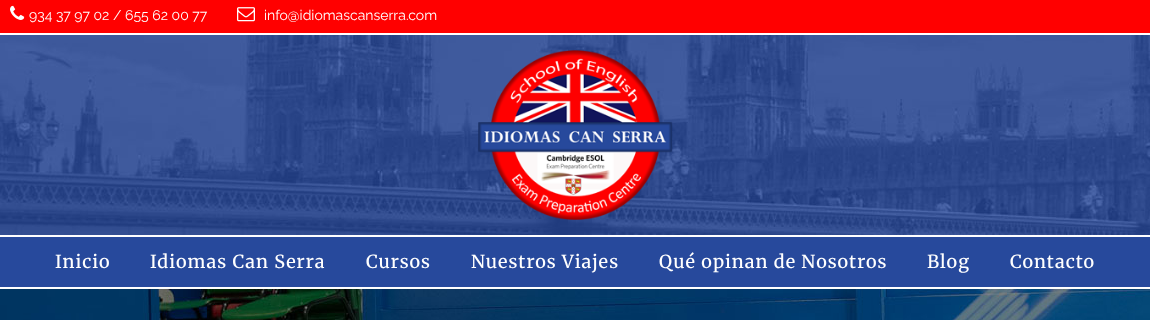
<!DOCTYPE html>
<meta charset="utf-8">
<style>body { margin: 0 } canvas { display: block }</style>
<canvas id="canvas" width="1150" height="320"></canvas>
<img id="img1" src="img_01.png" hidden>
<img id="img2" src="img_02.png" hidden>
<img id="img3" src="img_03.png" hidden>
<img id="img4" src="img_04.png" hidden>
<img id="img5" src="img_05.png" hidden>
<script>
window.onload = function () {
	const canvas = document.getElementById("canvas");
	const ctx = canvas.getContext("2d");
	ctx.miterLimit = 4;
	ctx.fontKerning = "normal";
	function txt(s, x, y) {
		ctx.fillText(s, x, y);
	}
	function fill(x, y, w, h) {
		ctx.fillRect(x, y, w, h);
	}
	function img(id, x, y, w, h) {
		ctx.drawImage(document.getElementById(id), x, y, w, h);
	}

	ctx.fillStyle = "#FFFFFF";
	fill(0, 0, 1150, 320);
	ctx.fillStyle = "#FF0000";
	fill(0, 0, 1150, 33);
	img("img1", 10, 5, 15, 15);
	img("img2", 237, 7, 18, 15);
	ctx.fillStyle = "#27499C";
	fill(0, 237, 1150, 50);
	img("img3", 0, 35, 1150, 200);
	img("img4", 478, 50, 195, 170);
	img("img5", 0, 289, 1150, 31);
	ctx.font = "14px Raleway";
	ctx.fillStyle = "#FFFFFF";
	txt("934 37 97 02 / 655 62 00 77", 29, 20);
	txt("info@idiomascanserra.com", 264, 20);
	ctx.letterSpacing = "1px";
	ctx.font = "500 18px Merriweather";
	txt("Inicio", 55, 268);
	txt("Idiomas Can Serra", 150, 268);
	txt("Cursos", 366, 268);
	txt("Nuestros Viajes", 471, 268);
	txt("Qué opinan de Nosotros", 659, 268);
	txt("Blog", 927, 268);
	txt("Contacto", 1010, 268);
};
</script>
